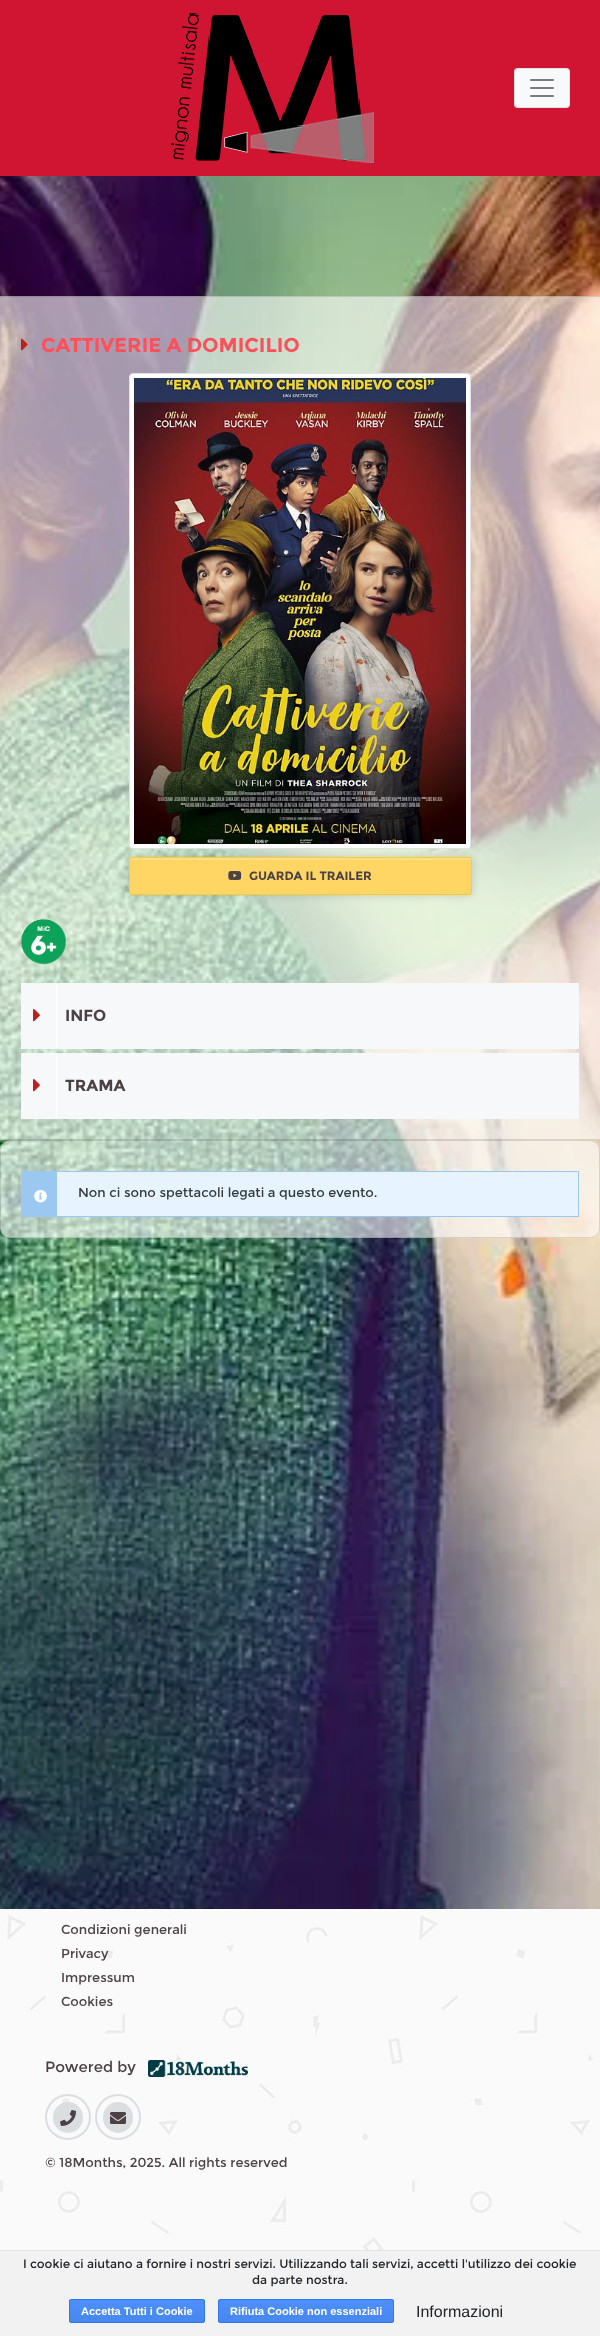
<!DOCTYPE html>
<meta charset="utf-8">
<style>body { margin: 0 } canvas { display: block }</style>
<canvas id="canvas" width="600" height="2336"></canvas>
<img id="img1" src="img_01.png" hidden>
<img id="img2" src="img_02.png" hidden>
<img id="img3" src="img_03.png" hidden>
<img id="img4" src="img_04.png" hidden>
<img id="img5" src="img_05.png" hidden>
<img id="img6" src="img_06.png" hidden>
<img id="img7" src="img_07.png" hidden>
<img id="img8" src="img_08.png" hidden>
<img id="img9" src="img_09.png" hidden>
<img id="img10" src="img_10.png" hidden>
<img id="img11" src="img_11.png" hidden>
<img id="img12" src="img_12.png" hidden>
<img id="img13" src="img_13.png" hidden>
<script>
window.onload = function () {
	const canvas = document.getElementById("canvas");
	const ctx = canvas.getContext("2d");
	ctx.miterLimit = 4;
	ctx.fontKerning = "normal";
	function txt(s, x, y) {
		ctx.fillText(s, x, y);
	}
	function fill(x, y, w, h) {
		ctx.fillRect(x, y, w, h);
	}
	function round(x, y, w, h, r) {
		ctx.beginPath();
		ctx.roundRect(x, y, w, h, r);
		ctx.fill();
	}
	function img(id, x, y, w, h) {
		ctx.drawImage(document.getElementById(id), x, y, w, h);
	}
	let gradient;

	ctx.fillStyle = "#FFFFFF";
	fill(0, 0, 600, 2336);
	ctx.fillStyle = "#D01532";
	fill(0, 0, 600, 176);
	img("img1", 171, 13, 203, 150);
	ctx.fillStyle = "#F8F9FA";
	round(514, 68, 56, 40, 4);
	ctx.beginPath();
	ctx.roundRect(514.5, 68.5, 55, 39, 3.5);
	ctx.strokeStyle = "rgba(0, 0, 0, 0.1)";
	ctx.stroke();
	img("img2", 530, 79, 24, 18);
	img("img3", 0, 176, 600, 1733);
	ctx.fillStyle = "rgba(255, 255, 255, 0.6)";
	fill(0, 296, 600, 844);
	ctx.strokeStyle = "rgba(0, 0, 0, 0.12)";
	ctx.strokeRect(-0.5, 296.5, 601, 843);
	img("img4", 21, 338, 7, 13);
	ctx.fillStyle = "rgba(0, 0, 0, 0.16)";
	ctx.filter = "blur(5px)";
	ctx.beginPath();
	ctx.roundRect(129, 857, 343, 38, 3);
	ctx.fill();
	ctx.filter = "none";
	ctx.fillStyle = "#FFFFFF";
	ctx.beginPath();
	ctx.roundRect(129.5, 373.5, 341, 475, 3.5);
	ctx.fill();
	ctx.strokeStyle = "#DEE2E6";
	ctx.stroke();
	img("img5", 134, 378, 332, 466);
	ctx.fillStyle = "#FFD564";
	round(129, 857, 343, 38, 3);
	ctx.fillStyle = "#FFDD83";
	ctx.beginPath();
	ctx.moveTo(132, 860);
	ctx.lineTo(469, 860);
	ctx.bezierCurveTo(470, 860, 471, 861, 471, 862);
	ctx.lineTo(471, 860);
	ctx.bezierCurveTo(471, 859, 470, 858, 469, 858);
	ctx.lineTo(132, 858);
	ctx.bezierCurveTo(131, 858, 130, 859, 130, 860);
	ctx.lineTo(130, 862);
	ctx.bezierCurveTo(130, 861, 131, 860, 132, 860);
	ctx.closePath();
	ctx.fill();
	ctx.beginPath();
	ctx.roundRect(129.5, 857.5, 342, 37, 2.5);
	ctx.strokeStyle = "#FFC936";
	ctx.stroke();
	img("img6", 228, 871, 14, 9);
	img("img7", 21, 919, 45, 46);
	ctx.fillStyle = "#FFFFFF";
	fill(21, 983, 3, 3);
	ctx.fillStyle = "#F7F8F9";
	ctx.beginPath();
	ctx.roundRect(21, 983, 558, 66, [3, 0, 0, 0]);
	ctx.fill();
	ctx.fillStyle = "#FFFFFF";
	fill(56, 984, 1, 64);
	img("img8", 33, 1009, 7, 13);
	fill(576, 1053, 3, 3);
	ctx.fillStyle = "#F7F8F9";
	ctx.beginPath();
	ctx.roundRect(21, 1053, 558, 66, [0, 3, 0, 0]);
	ctx.fill();
	ctx.fillStyle = "#FFFFFF";
	fill(56, 1054, 1, 64);
	img("img8", 33, 1079, 7, 13);
	ctx.fillStyle = "rgba(255, 255, 255, 0.6)";
	round(0, 1140, 600, 98, 10);
	ctx.beginPath();
	ctx.roundRect(0.5, 1140.5, 599, 97, 9.5);
	ctx.strokeStyle = "rgba(0, 0, 0, 0.12)";
	ctx.stroke();
	ctx.fillStyle = "#E7F4FF";
	fill(57, 1172, 521, 44);
	ctx.strokeStyle = "#9AC8F1";
	ctx.strokeRect(21.5, 1171.5, 557, 45);
	ctx.fillStyle = "#9AC8F1";
	fill(22, 1172, 35, 44);
	img("img9", 34, 1189, 13, 14);
	ctx.fillStyle = "#FAFAFA";
	fill(594, 1909, 6, 341);
	img("img10", 0, 1909, 594, 341);
	img("img11", 148, 2060, 100, 17);
	ctx.fillStyle = "#DBDEE1";
	round(53, 2102, 30, 31, 15);
	img("img12", 60, 2110, 16, 16);
	ctx.beginPath();
	ctx.arc(68, 2117, 22, 0, Math.PI * 2);
	ctx.strokeStyle = "#DBDEE1";
	ctx.lineWidth = 2;
	ctx.stroke();
	round(103, 2102, 30, 31, 15);
	img("img13", 110, 2112, 16, 12);
	ctx.beginPath();
	ctx.arc(118, 2117, 22, 0, Math.PI * 2);
	ctx.stroke();
	ctx.fillStyle = "#F2F2F2";
	fill(0, 2251, 600, 85);
	ctx.fillStyle = "#E4E4E4";
	fill(0, 2250, 600, 1);
	ctx.save();
	ctx.beginPath();
	ctx.roundRect(69, 2299, 136, 24, 2);
	ctx.clip();
	gradient = ctx.createLinearGradient(137, 2300, 137, 2322);
	gradient.addColorStop(0, "#4D90FE");
	gradient.addColorStop(1, "#4787ED");
	ctx.fillStyle = gradient;
	fill(69, 2300, 136, 22);
	ctx.restore();
	ctx.beginPath();
	ctx.roundRect(69.5, 2299.5, 135, 23, 1.5);
	ctx.strokeStyle = "#3079ED";
	ctx.lineWidth = 1;
	ctx.stroke();
	ctx.save();
	ctx.beginPath();
	ctx.roundRect(218, 2299, 176, 24, 2);
	ctx.clip();
	gradient = ctx.createLinearGradient(306, 2300, 306, 2322);
	gradient.addColorStop(0, "#4D90FE");
	gradient.addColorStop(1, "#4787ED");
	ctx.fillStyle = gradient;
	fill(218, 2300, 176, 22);
	ctx.restore();
	ctx.beginPath();
	ctx.roundRect(218.5, 2299.5, 175, 23, 1.5);
	ctx.stroke();
	ctx.font = "bold 20px Montserrat";
	ctx.fillStyle = "#FE505A";
	txt("CATTIVERIE A DOMICILIO", 41, 352);
	ctx.font = "bold 12px Montserrat";
	ctx.fillStyle = "#4C4145";
	txt("GUARDA IL TRAILER", 249, 880);
	ctx.font = "bold 16px Montserrat";
	txt("INFO", 65, 1021);
	txt("TRAMA", 65, 1091);
	ctx.font = "13px Montserrat";
	ctx.fillStyle = "#343A40";
	txt("Non ci sono spettacoli legati a questo evento.", 78, 1197);
	ctx.fillStyle = "#4C4145";
	txt("Condizioni generali", 61, 1934);
	txt("Privacy", 61, 1958);
	txt("Impressum", 61, 1982);
	txt("Cookies", 61, 2006);
	ctx.font = "15px Montserrat";
	txt("Powered by", 45, 2072);
	ctx.font = "13px Montserrat";
	txt("© 18Months, 2025. All rights reserved", 45, 2167);
	ctx.font = "12px Montserrat";
	ctx.fillStyle = "#212529";
	txt("I cookie ci aiutano a fornire i nostri servizi. Utilizzando tali servizi, accetti l'utilizzo dei cookie", 23, 2268);
	txt("da parte nostra.", 252, 2284);
	ctx.font = "bold 11px Liberation Sans";
	ctx.fillStyle = "#FFFFFF";
	txt("Accetta Tutti i Cookie", 81, 2315);
	txt("Rifiuta Cookie non essenziali", 230, 2315);
	ctx.font = "16px Liberation Sans";
	ctx.fillStyle = "#212529";
	txt("Informazioni", 416, 2317);
};
</script>
